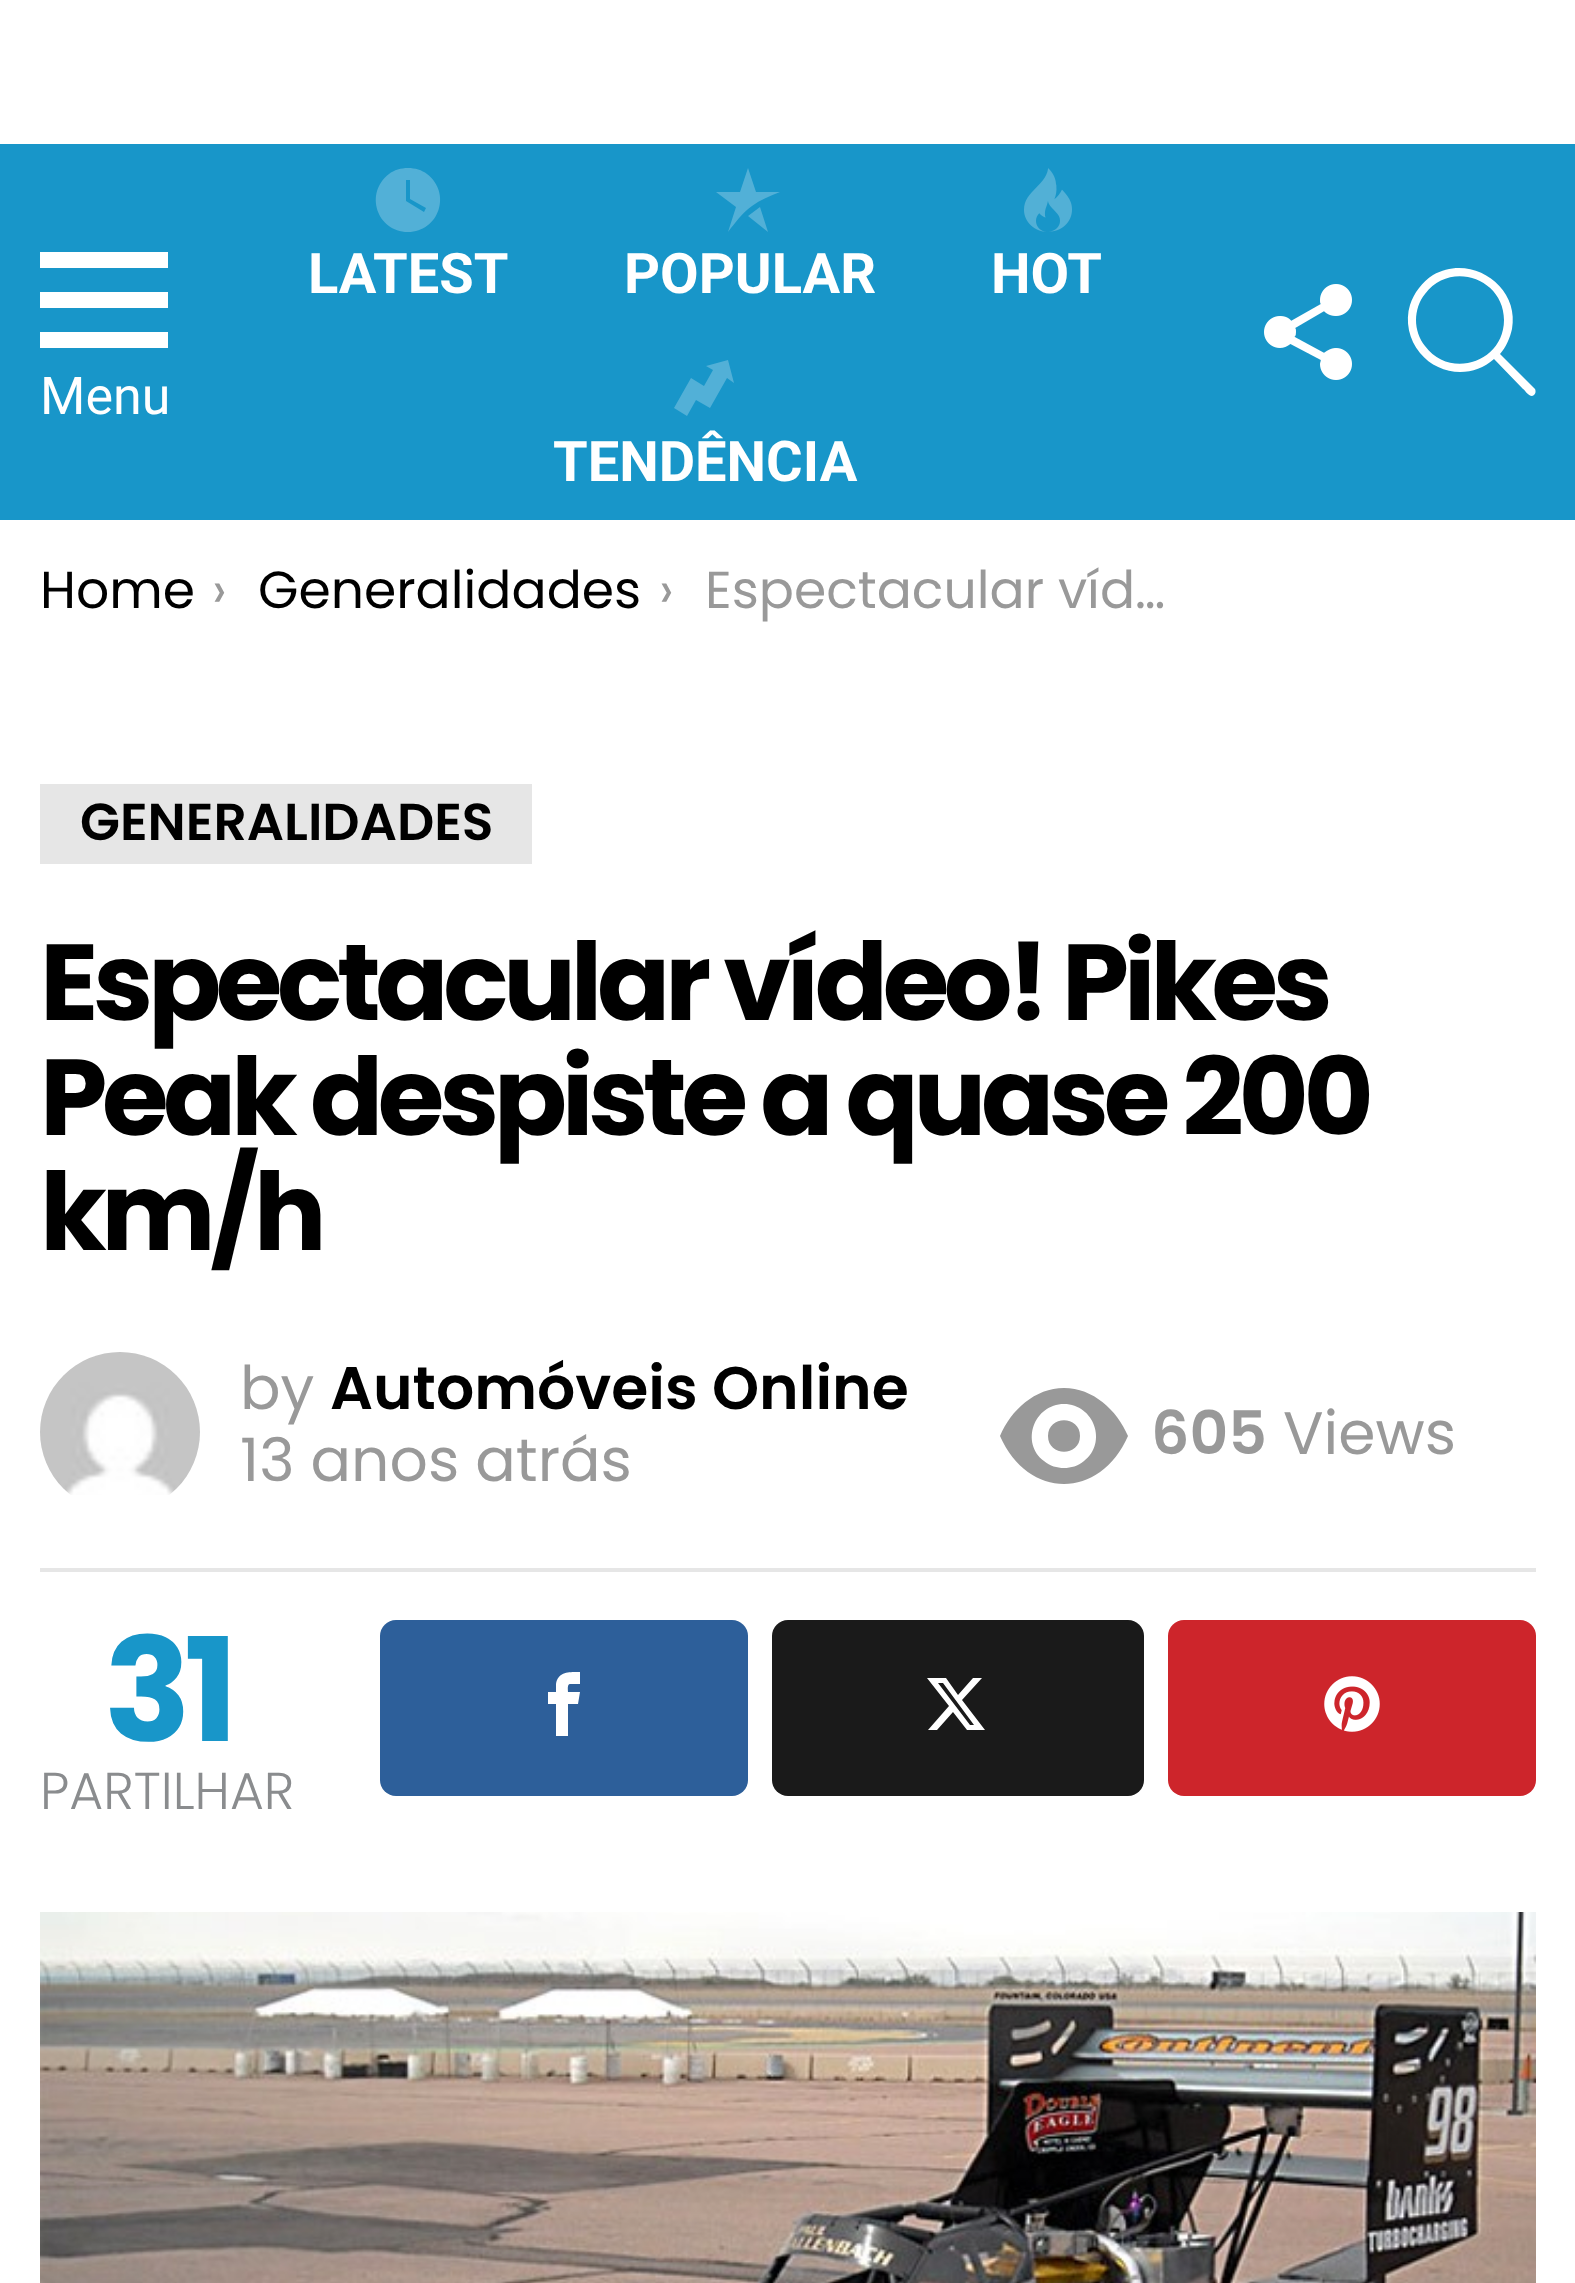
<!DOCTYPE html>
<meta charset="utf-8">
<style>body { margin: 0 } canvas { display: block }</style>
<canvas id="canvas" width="1575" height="2283"></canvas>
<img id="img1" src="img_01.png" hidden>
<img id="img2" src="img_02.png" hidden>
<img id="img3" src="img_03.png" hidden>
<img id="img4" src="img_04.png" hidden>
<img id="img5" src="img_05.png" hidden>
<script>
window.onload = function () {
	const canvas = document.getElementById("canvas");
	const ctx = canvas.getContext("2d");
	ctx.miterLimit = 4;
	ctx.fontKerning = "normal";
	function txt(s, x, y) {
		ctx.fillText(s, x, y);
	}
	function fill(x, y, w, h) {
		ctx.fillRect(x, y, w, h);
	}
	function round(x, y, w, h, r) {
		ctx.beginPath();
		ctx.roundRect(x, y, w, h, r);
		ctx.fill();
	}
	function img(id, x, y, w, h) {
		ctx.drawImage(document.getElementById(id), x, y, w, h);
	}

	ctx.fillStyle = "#FFFFFF";
	fill(0, 0, 1575, 2283);
	ctx.fillStyle = "#1896C9";
	fill(0, 144, 1575, 376);
	ctx.fillStyle = "#FFFFFF";
	ctx.beginPath();
	ctx.moveTo(40, 252);
	ctx.lineTo(168, 252);
	ctx.lineTo(168, 268);
	ctx.lineTo(40, 268);
	ctx.closePath();
	ctx.moveTo(40, 292);
	ctx.lineTo(168, 292);
	ctx.lineTo(168, 308);
	ctx.lineTo(40, 308);
	ctx.closePath();
	ctx.moveTo(40, 332);
	ctx.lineTo(168, 332);
	ctx.lineTo(168, 348);
	ctx.lineTo(40, 348);
	ctx.closePath();
	ctx.fill();
	ctx.fillStyle = "#52B0D7";
	ctx.beginPath();
	ctx.moveTo(408, 168);
	ctx.bezierCurveTo(401, 168, 394, 170, 389, 174);
	ctx.bezierCurveTo(364, 193, 377, 232, 408, 232);
	ctx.bezierCurveTo(439, 232, 452, 193, 427, 174);
	ctx.bezierCurveTo(422, 170, 415, 168, 408, 168);
	ctx.closePath();
	ctx.moveTo(424, 212);
	ctx.lineTo(406, 201);
	ctx.lineTo(406, 180);
	ctx.lineTo(410, 180);
	ctx.lineTo(410, 199);
	ctx.lineTo(426, 208);
	ctx.closePath();
	ctx.fill();
	ctx.beginPath();
	ctx.moveTo(752, 206);
	ctx.bezierCurveTo(760, 200, 770, 196, 780, 192);
	ctx.lineTo(756, 192);
	ctx.lineTo(748, 168);
	ctx.lineTo(740, 192);
	ctx.lineTo(716, 192);
	ctx.lineTo(736, 207);
	ctx.lineTo(728, 232);
	ctx.bezierCurveTo(735, 223, 742, 213, 752, 206);
	ctx.closePath();
	ctx.moveTo(748, 216);
	ctx.lineTo(768, 232);
	ctx.lineTo(760, 207);
	ctx.closePath();
	ctx.fill();
	img("img1", 1024, 168, 48, 64);
	ctx.beginPath();
	ctx.moveTo(704, 386);
	ctx.lineTo(713, 370);
	ctx.lineTo(706, 366);
	ctx.lineTo(728, 360);
	ctx.lineTo(734, 383);
	ctx.lineTo(727, 378);
	ctx.lineTo(710, 408);
	ctx.lineTo(696, 400);
	ctx.lineTo(687, 416);
	ctx.lineTo(674, 408);
	ctx.lineTo(691, 378);
	ctx.closePath();
	ctx.fill();
	img("img2", 1264, 284, 88, 96);
	ctx.fillStyle = "#FFFFFF";
	ctx.beginPath();
	ctx.moveTo(1535, 389);
	ctx.lineTo(1500, 354);
	ctx.bezierCurveTo(1506, 347, 1510, 338, 1512, 329);
	ctx.bezierCurveTo(1520, 286, 1471, 253, 1433, 275);
	ctx.bezierCurveTo(1422, 282, 1414, 293, 1410, 305);
	ctx.bezierCurveTo(1405, 321, 1409, 340, 1420, 353);
	ctx.bezierCurveTo(1438, 375, 1472, 379, 1494, 359);
	ctx.lineTo(1523, 389);
	ctx.bezierCurveTo(1525, 390, 1528, 396, 1532, 396);
	ctx.bezierCurveTo(1536, 395, 1536, 391, 1535, 389);
	ctx.closePath();
	ctx.moveTo(1416, 320);
	ctx.bezierCurveTo(1416, 311, 1419, 301, 1425, 294);
	ctx.bezierCurveTo(1450, 260, 1504, 278, 1504, 320);
	ctx.bezierCurveTo(1504, 362, 1450, 380, 1425, 346);
	ctx.bezierCurveTo(1419, 339, 1416, 329, 1416, 320);
	ctx.closePath();
	ctx.fill();
	ctx.fillStyle = "#E6E6E6";
	fill(40, 784, 492, 80);
	img("img3", 40, 1352, 160, 143);
	ctx.fillStyle = "#999999";
	ctx.beginPath();
	ctx.moveTo(1064, 1388);
	ctx.bezierCurveTo(1035, 1388, 1011, 1410, 1000, 1436);
	ctx.bezierCurveTo(1028, 1500, 1100, 1500, 1128, 1436);
	ctx.bezierCurveTo(1117, 1410, 1093, 1388, 1064, 1388);
	ctx.closePath();
	ctx.moveTo(1064, 1468);
	ctx.bezierCurveTo(1057, 1468, 1050, 1466, 1044, 1461);
	ctx.bezierCurveTo(1020, 1443, 1034, 1404, 1064, 1404);
	ctx.bezierCurveTo(1094, 1404, 1108, 1443, 1084, 1461);
	ctx.bezierCurveTo(1078, 1466, 1071, 1468, 1064, 1468);
	ctx.closePath();
	ctx.moveTo(1048, 1436);
	ctx.bezierCurveTo(1048, 1457, 1080, 1457, 1080, 1436);
	ctx.bezierCurveTo(1080, 1415, 1048, 1415, 1048, 1436);
	ctx.closePath();
	ctx.fill();
	ctx.fillStyle = "#E6E6E6";
	fill(40, 1568, 1496, 4);
	ctx.fillStyle = "#2D5F9A";
	round(380, 1620, 368, 176, 16);
	ctx.fillStyle = "#FFFFFF";
	ctx.beginPath();
	ctx.moveTo(570, 1684);
	ctx.lineTo(580, 1684);
	ctx.lineTo(580, 1672);
	ctx.bezierCurveTo(570, 1672, 558, 1671, 556, 1684);
	ctx.lineTo(556, 1692);
	ctx.lineTo(548, 1692);
	ctx.lineTo(548, 1704);
	ctx.lineTo(556, 1704);
	ctx.lineTo(556, 1736);
	ctx.lineTo(568, 1736);
	ctx.lineTo(568, 1704);
	ctx.lineTo(578, 1704);
	ctx.lineTo(580, 1692);
	ctx.lineTo(568, 1692);
	ctx.bezierCurveTo(568, 1690, 567, 1684, 570, 1684);
	ctx.closePath();
	ctx.fill();
	ctx.fillStyle = "#1A1A1A";
	round(772, 1620, 372, 176, 16);
	ctx.fillStyle = "#FFFFFF";
	ctx.beginPath();
	ctx.moveTo(973, 1678);
	ctx.lineTo(982, 1678);
	ctx.lineTo(962, 1700);
	ctx.lineTo(985, 1730);
	ctx.lineTo(967, 1730);
	ctx.lineTo(953, 1712);
	ctx.lineTo(937, 1730);
	ctx.lineTo(928, 1730);
	ctx.lineTo(949, 1706);
	ctx.lineTo(927, 1678);
	ctx.lineTo(946, 1678);
	ctx.lineTo(958, 1695);
	ctx.closePath();
	ctx.moveTo(970, 1725);
	ctx.lineTo(974, 1725);
	ctx.lineTo(943, 1683);
	ctx.lineTo(938, 1683);
	ctx.closePath();
	ctx.fill();
	ctx.fillStyle = "#CD252B";
	round(1168, 1620, 368, 176, 16);
	img("img4", 1324, 1676, 56, 56);
	img("img5", 40, 1912, 1496, 371);
	ctx.font = "52px Roboto";
	ctx.fillStyle = "#FFFFFF";
	txt("Menu", 40, 414);
	ctx.font = "bold 56px Roboto";
	txt("LATEST", 308, 293);
	txt("POPULAR", 624, 293);
	txt("HOT", 991, 293);
	txt("TENDÊNCIA", 553, 481);
	ctx.font = "52px Poppins";
	ctx.fillStyle = "#000000";
	txt("Home", 40, 608);
	ctx.fillStyle = "#999999";
	txt("›", 212, 608);
	ctx.fillStyle = "#000000";
	txt("Generalidades", 258, 608);
	ctx.fillStyle = "#999999";
	txt("›", 659, 608);
	txt("Espectacular víd…", 705, 608);
	ctx.font = "600 52px Poppins";
	ctx.fillStyle = "#000000";
	txt("GENERALIDADES", 80, 840);
	ctx.letterSpacing = "-5.4px";
	ctx.font = "bold 108px Poppins";
	txt("Espectacular vídeo! Pikes", 40, 1020);
	txt("Peak despiste a quase 200", 40, 1135);
	txt("km/h", 40, 1250);
	ctx.letterSpacing = "0px";
	ctx.font = "60px Poppins";
	ctx.fillStyle = "#999999";
	txt("by", 240, 1409);
	ctx.font = "600 60px Poppins";
	ctx.fillStyle = "#000000";
	txt("Automóveis Online", 330, 1409);
	ctx.font = "60px Poppins";
	ctx.fillStyle = "#999999";
	txt("13 anos atrás", 240, 1481);
	ctx.font = "600 60px Poppins";
	txt("605", 1151, 1454);
	ctx.font = "60px Poppins";
	txt("Views", 1283, 1454);
	ctx.letterSpacing = "-7px";
	ctx.font = "bold 144px Poppins";
	ctx.fillStyle = "#1896C9";
	txt("31", 104, 1741);
	ctx.letterSpacing = "0px";
	ctx.font = "300 52px Poppins";
	ctx.fillStyle = "#8A8C8E";
	txt("PARTILHAR", 40, 1809);
};
</script>
